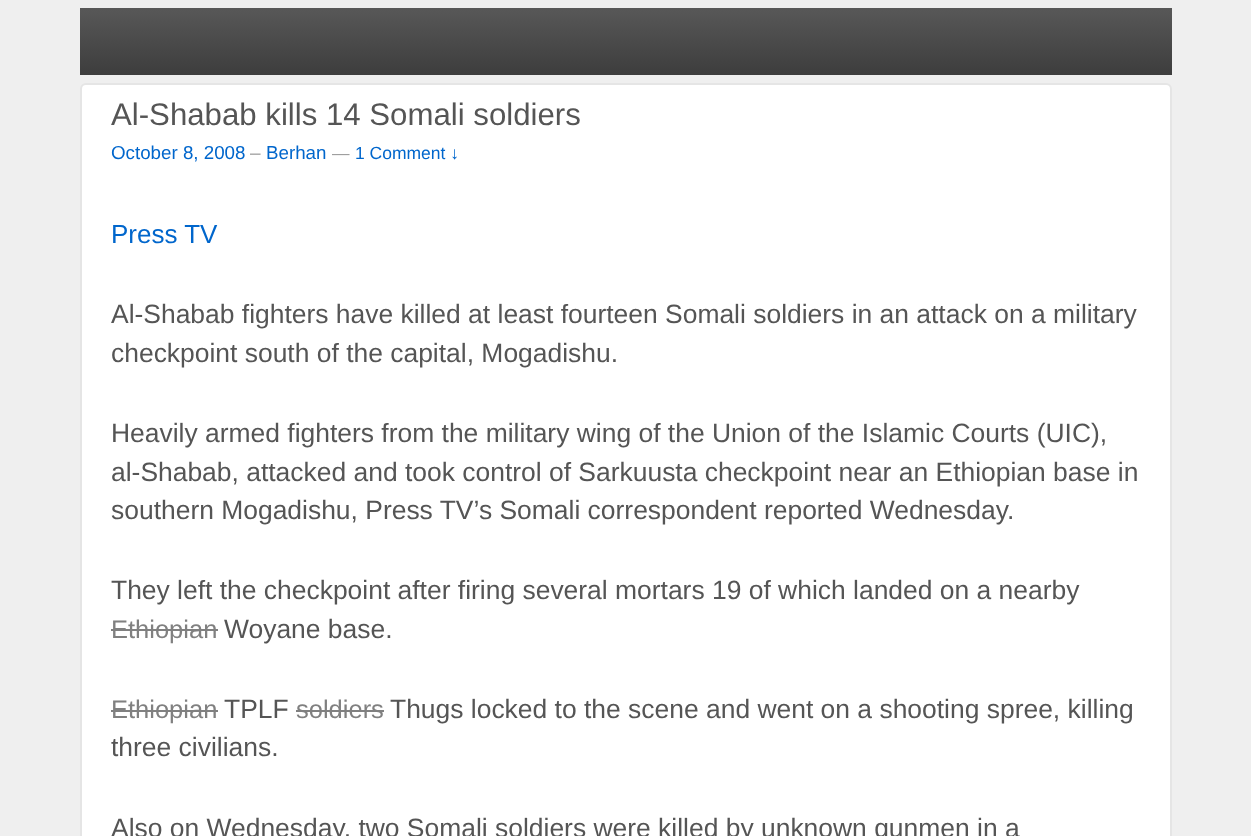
<!DOCTYPE html>
<meta charset="utf-8">
<style>body { margin: 0 } canvas { display: block }</style>
<canvas id="canvas" width="1251" height="836"></canvas>
<script>
window.onload = function () {
	const canvas = document.getElementById("canvas");
	const ctx = canvas.getContext("2d");
	ctx.miterLimit = 4;
	ctx.fontKerning = "normal";
	function txt(s, x, y) {
		ctx.fillText(s, x, y);
	}
	function fill(x, y, w, h) {
		ctx.fillRect(x, y, w, h);
	}
	let gradient;

	ctx.fillStyle = "#EFEFEF";
	fill(0, 0, 1251, 836);
	gradient = ctx.createLinearGradient(626, 7.5, 626, 75);
	gradient.addColorStop(0, "#585858");
	gradient.addColorStop(1, "#3D3D3D");
	ctx.fillStyle = gradient;
	fill(80, 8, 1092, 67);
	ctx.fillStyle = "#FFFFFF";
	ctx.beginPath();
	ctx.roundRect(81, 84, 1090, 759, 5);
	ctx.fill();
	ctx.strokeStyle = "#E5E5E5";
	ctx.lineWidth = 2;
	ctx.stroke();
	ctx.fillStyle = "#808080";
	fill(111, 629, 107, 2);
	fill(111, 710, 107, 2);
	fill(296, 710, 88, 2);
	ctx.font = "31.2px Liberation Sans";
	ctx.fillStyle = "#555555";
	txt("Al-Shabab kills 14 Somali soldiers", 111, 125);
	ctx.font = "18.75px Liberation Sans";
	ctx.fillStyle = "#0066CC";
	txt("October 8, 2008", 111, 159);
	ctx.font = "19px Liberation Sans";
	ctx.fillStyle = "#9F9F9F";
	txt("–", 250, 159);
	ctx.font = "18.75px Liberation Sans";
	ctx.fillStyle = "#0066CC";
	txt("Berhan", 266, 159);
	ctx.font = "17.5px Liberation Sans";
	ctx.fillStyle = "#9F9F9F";
	txt("—", 332, 159);
	ctx.fillStyle = "#0066CC";
	txt("1 Comment ↓", 355, 159);
	ctx.font = "26px Liberation Sans";
	txt("Press TV", 111, 243);
	ctx.font = "26.45px Liberation Sans";
	ctx.fillStyle = "#555555";
	txt("Al-Shabab fighters have killed at least fourteen Somali soldiers in an attack on a military", 111, 323);
	txt("checkpoint south of the capital, Mogadishu.", 111, 362);
	txt("Heavily armed fighters from the military wing of the Union of the Islamic Courts (UIC),", 111, 442);
	txt("al-Shabab, attacked and took control of Sarkuusta checkpoint near an Ethiopian base in", 111, 481);
	txt("southern Mogadishu, Press TV’s Somali correspondent reported Wednesday.", 111, 519);
	txt("They left the checkpoint after firing several mortars 19 of which landed on a nearby", 111, 599);
	ctx.font = "25.5px Liberation Sans";
	ctx.fillStyle = "#808080";
	txt("Ethiopian", 111, 638);
	ctx.font = "26.45px Liberation Sans";
	ctx.fillStyle = "#555555";
	txt("Woyane base.", 224, 638);
	ctx.font = "25.5px Liberation Sans";
	ctx.fillStyle = "#808080";
	txt("Ethiopian", 111, 718);
	ctx.font = "26.45px Liberation Sans";
	ctx.fillStyle = "#555555";
	txt("TPLF", 224, 718);
	ctx.font = "25.5px Liberation Sans";
	ctx.fillStyle = "#808080";
	txt("soldiers", 296, 718);
	ctx.font = "26.45px Liberation Sans";
	ctx.fillStyle = "#555555";
	txt("Thugs locked to the scene and went on a shooting spree, killing", 390, 718);
	txt("three civilians.", 111, 756);
	txt("Also on Wednesday, two Somali soldiers were killed by unknown gunmen in a", 111, 837);
};
</script>
